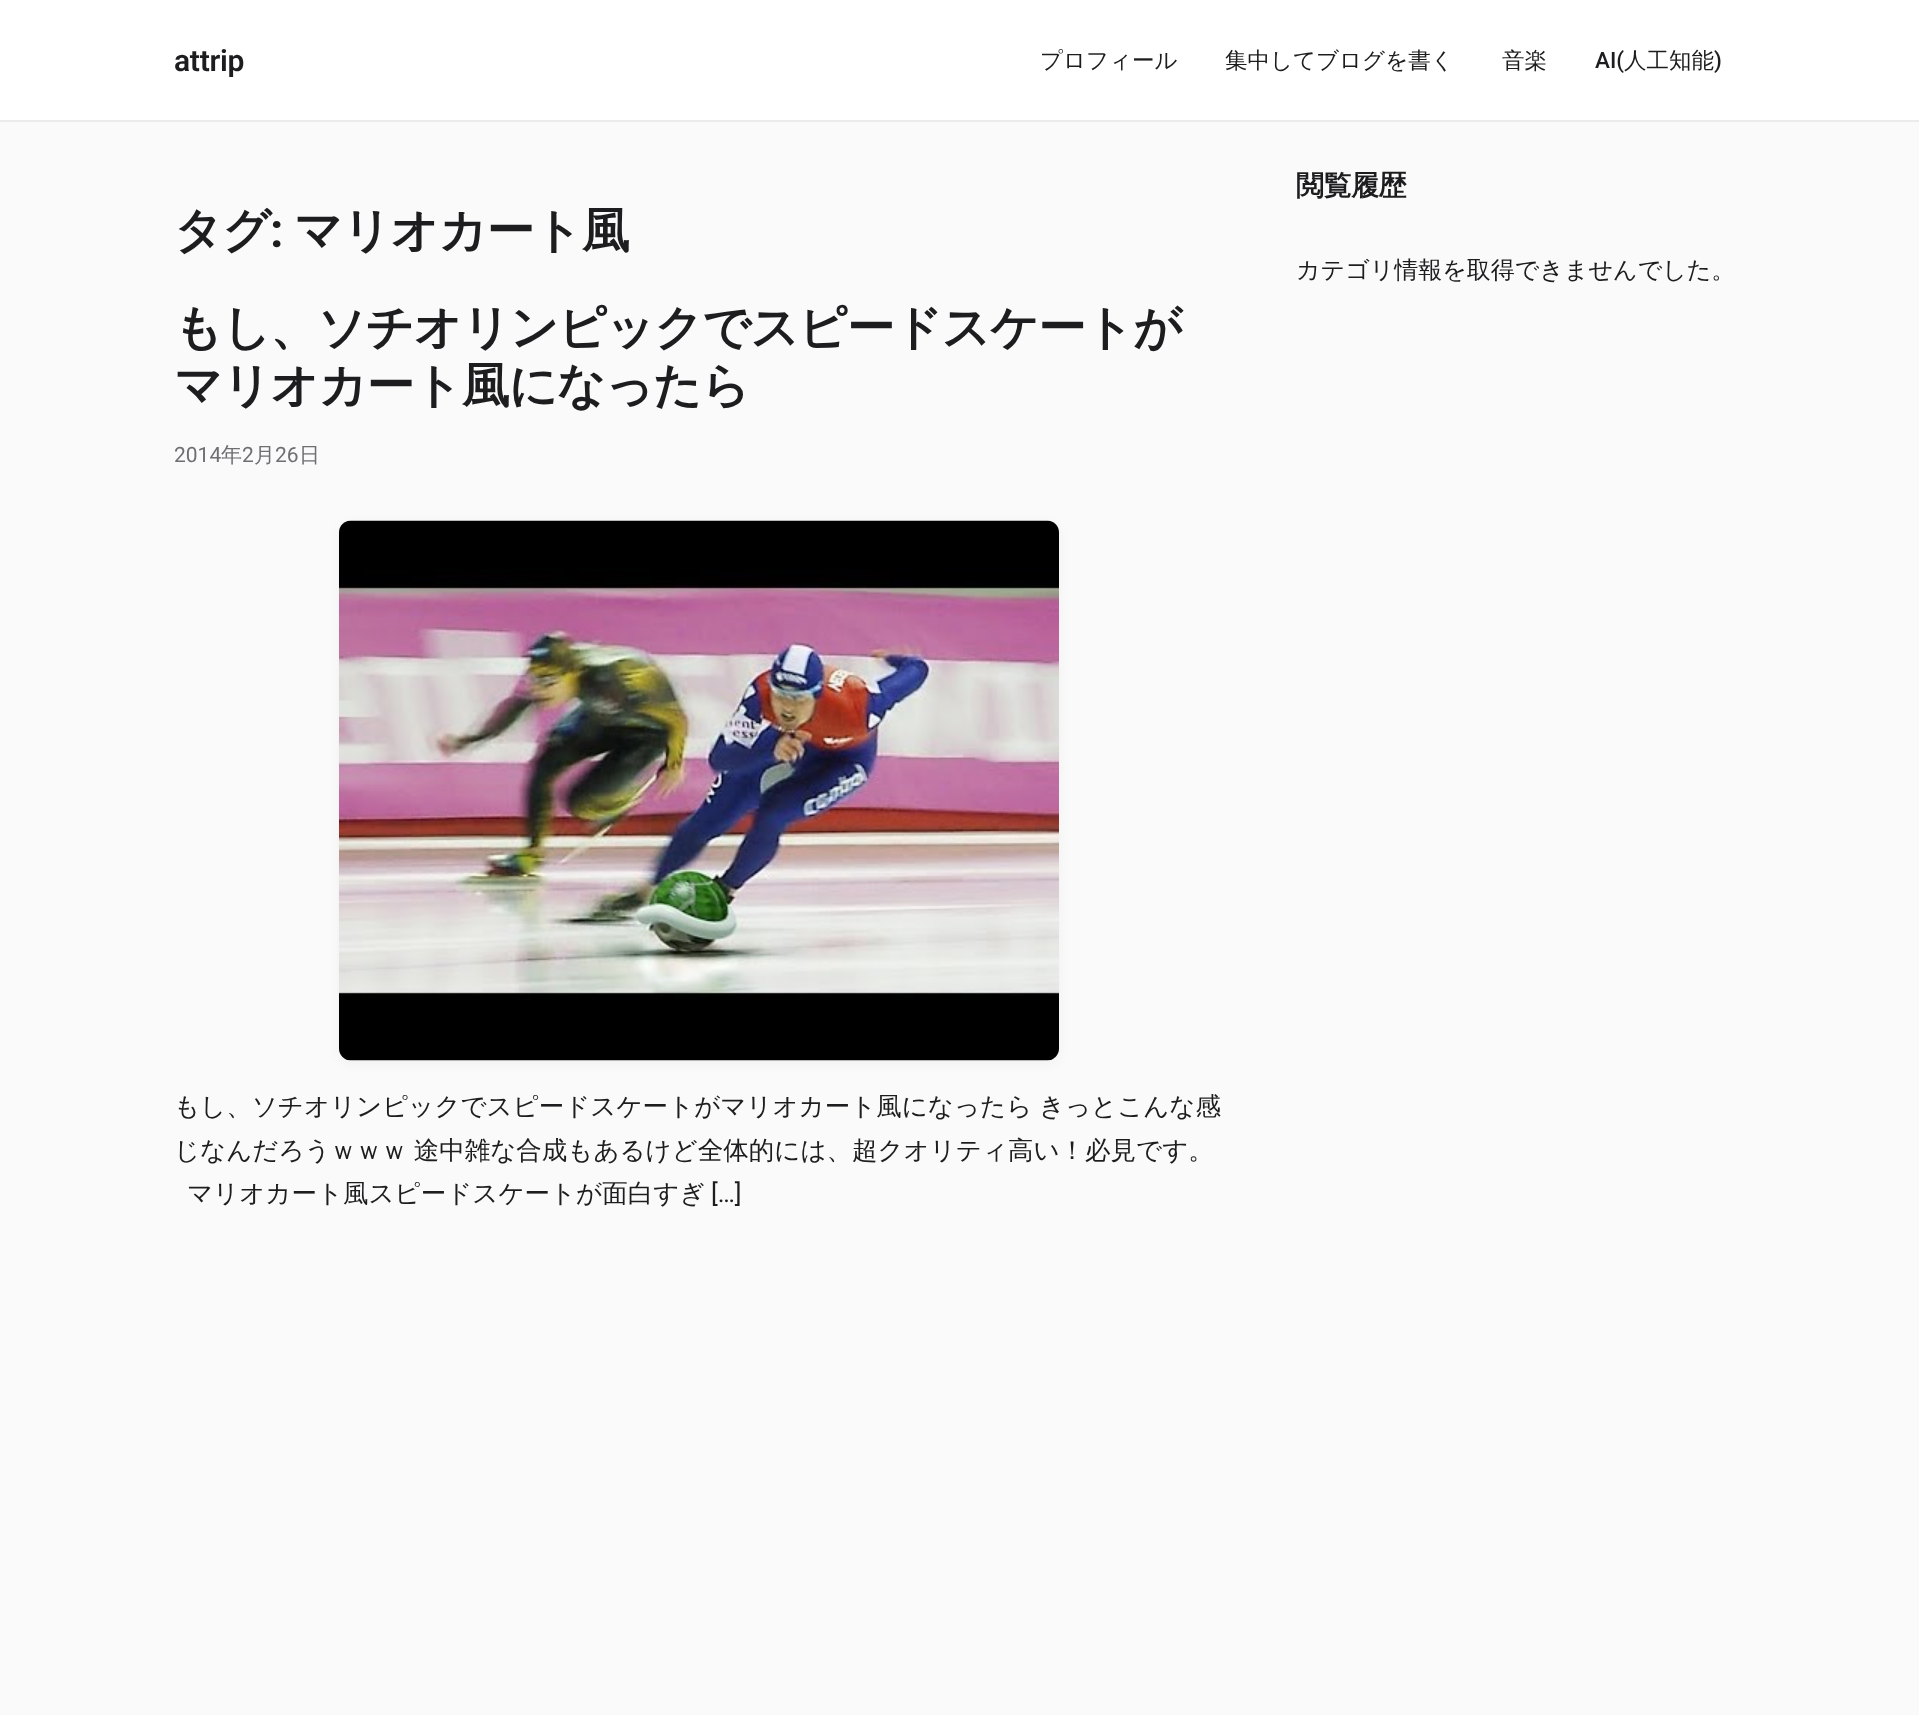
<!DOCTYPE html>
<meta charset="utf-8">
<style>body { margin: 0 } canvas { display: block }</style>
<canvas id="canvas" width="1919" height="1715"></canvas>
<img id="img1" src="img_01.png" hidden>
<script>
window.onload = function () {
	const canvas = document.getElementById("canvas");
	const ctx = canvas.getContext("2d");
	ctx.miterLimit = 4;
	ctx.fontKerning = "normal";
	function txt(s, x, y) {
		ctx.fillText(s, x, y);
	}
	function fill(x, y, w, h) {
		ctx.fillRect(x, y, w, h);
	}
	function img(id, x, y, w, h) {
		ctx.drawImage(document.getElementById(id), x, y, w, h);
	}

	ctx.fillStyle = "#FAFAFA";
	fill(0, 0, 1919, 1715);
	ctx.fillStyle = "#FFFFFF";
	fill(0, 0, 1919, 120);
	ctx.fillStyle = "#EBEBEB";
	fill(0, 120, 1919, 2);
	ctx.fillStyle = "rgba(0, 0, 0, 0.04)";
	ctx.filter = "blur(6px)";
	ctx.beginPath();
	ctx.roundRect(339, 524, 720, 540, 12);
	ctx.fill();
	ctx.filter = "none";
	img("img1", 339, 520, 720, 541);
	ctx.letterSpacing = "-0.25px";
	ctx.font = "600 30px Roboto";
	ctx.fillStyle = "#1D1D1F";
	txt("attrip", 174, 71);
	ctx.letterSpacing = "0px";
	ctx.font = "500 22.5px WenQuanYi Zen Hei";
	txt("プロフィール", 1040, 68);
	txt("集中してブログを書く", 1225, 68);
	txt("音楽", 1502, 68);
	ctx.font = "500 22.5px Roboto";
	txt("AI(", 1595, 68);
	ctx.font = "500 22.5px WenQuanYi Zen Hei";
	txt("人工知能", 1624, 68);
	ctx.font = "500 22.5px Roboto";
	txt(")", 1714, 68);
	ctx.letterSpacing = "-1px";
	ctx.font = "bold 48px WenQuanYi Zen Hei";
	txt("タグ", 174, 247);
	ctx.font = "bold 48px Roboto";
	txt(":", 270, 247);
	ctx.font = "bold 48px WenQuanYi Zen Hei";
	txt("マリオカート風", 294, 247);
	txt("もし、ソチオリンピックでスピードスケートが", 174, 344);
	txt("マリオカート風になったら", 174, 402);
	ctx.letterSpacing = "0px";
	ctx.font = "21px Roboto";
	ctx.fillStyle = "#6E6E73";
	txt("2014", 174, 462);
	ctx.font = "500 21px WenQuanYi Zen Hei";
	txt("年", 221, 462);
	ctx.font = "21px Roboto";
	txt("2", 242, 462);
	ctx.font = "500 21px WenQuanYi Zen Hei";
	txt("月", 254, 462);
	ctx.font = "21px Roboto";
	txt("26", 275, 462);
	ctx.font = "500 21px WenQuanYi Zen Hei";
	txt("日", 299, 462);
	ctx.wordSpacing = "-1px";
	ctx.font = "500 25.5px WenQuanYi Zen Hei";
	ctx.fillStyle = "#1D1D1F";
	txt("もし、ソチオリンピックでスピードスケートがマリオカート風になったら きっとこんな感", 174, 1115);
	txt("じなんだろうｗｗｗ 途中雑な合成もあるけど全体的には、超クオリティ高い！必見です。", 174, 1159);
	ctx.wordSpacing = "0px";
	txt("マリオカート風スピードスケートが面白すぎ", 187, 1202);
	ctx.font = "25.5px Roboto";
	txt("[…]", 711, 1202);
	ctx.letterSpacing = "-0.5px";
	ctx.font = "bold 28px WenQuanYi Zen Hei";
	txt("閲覧履歴", 1296, 195);
	ctx.letterSpacing = "0px";
	ctx.font = "500 24px WenQuanYi Zen Hei";
	txt("カテゴリ情報を取得できませんでした。", 1296, 278);
};
</script>
